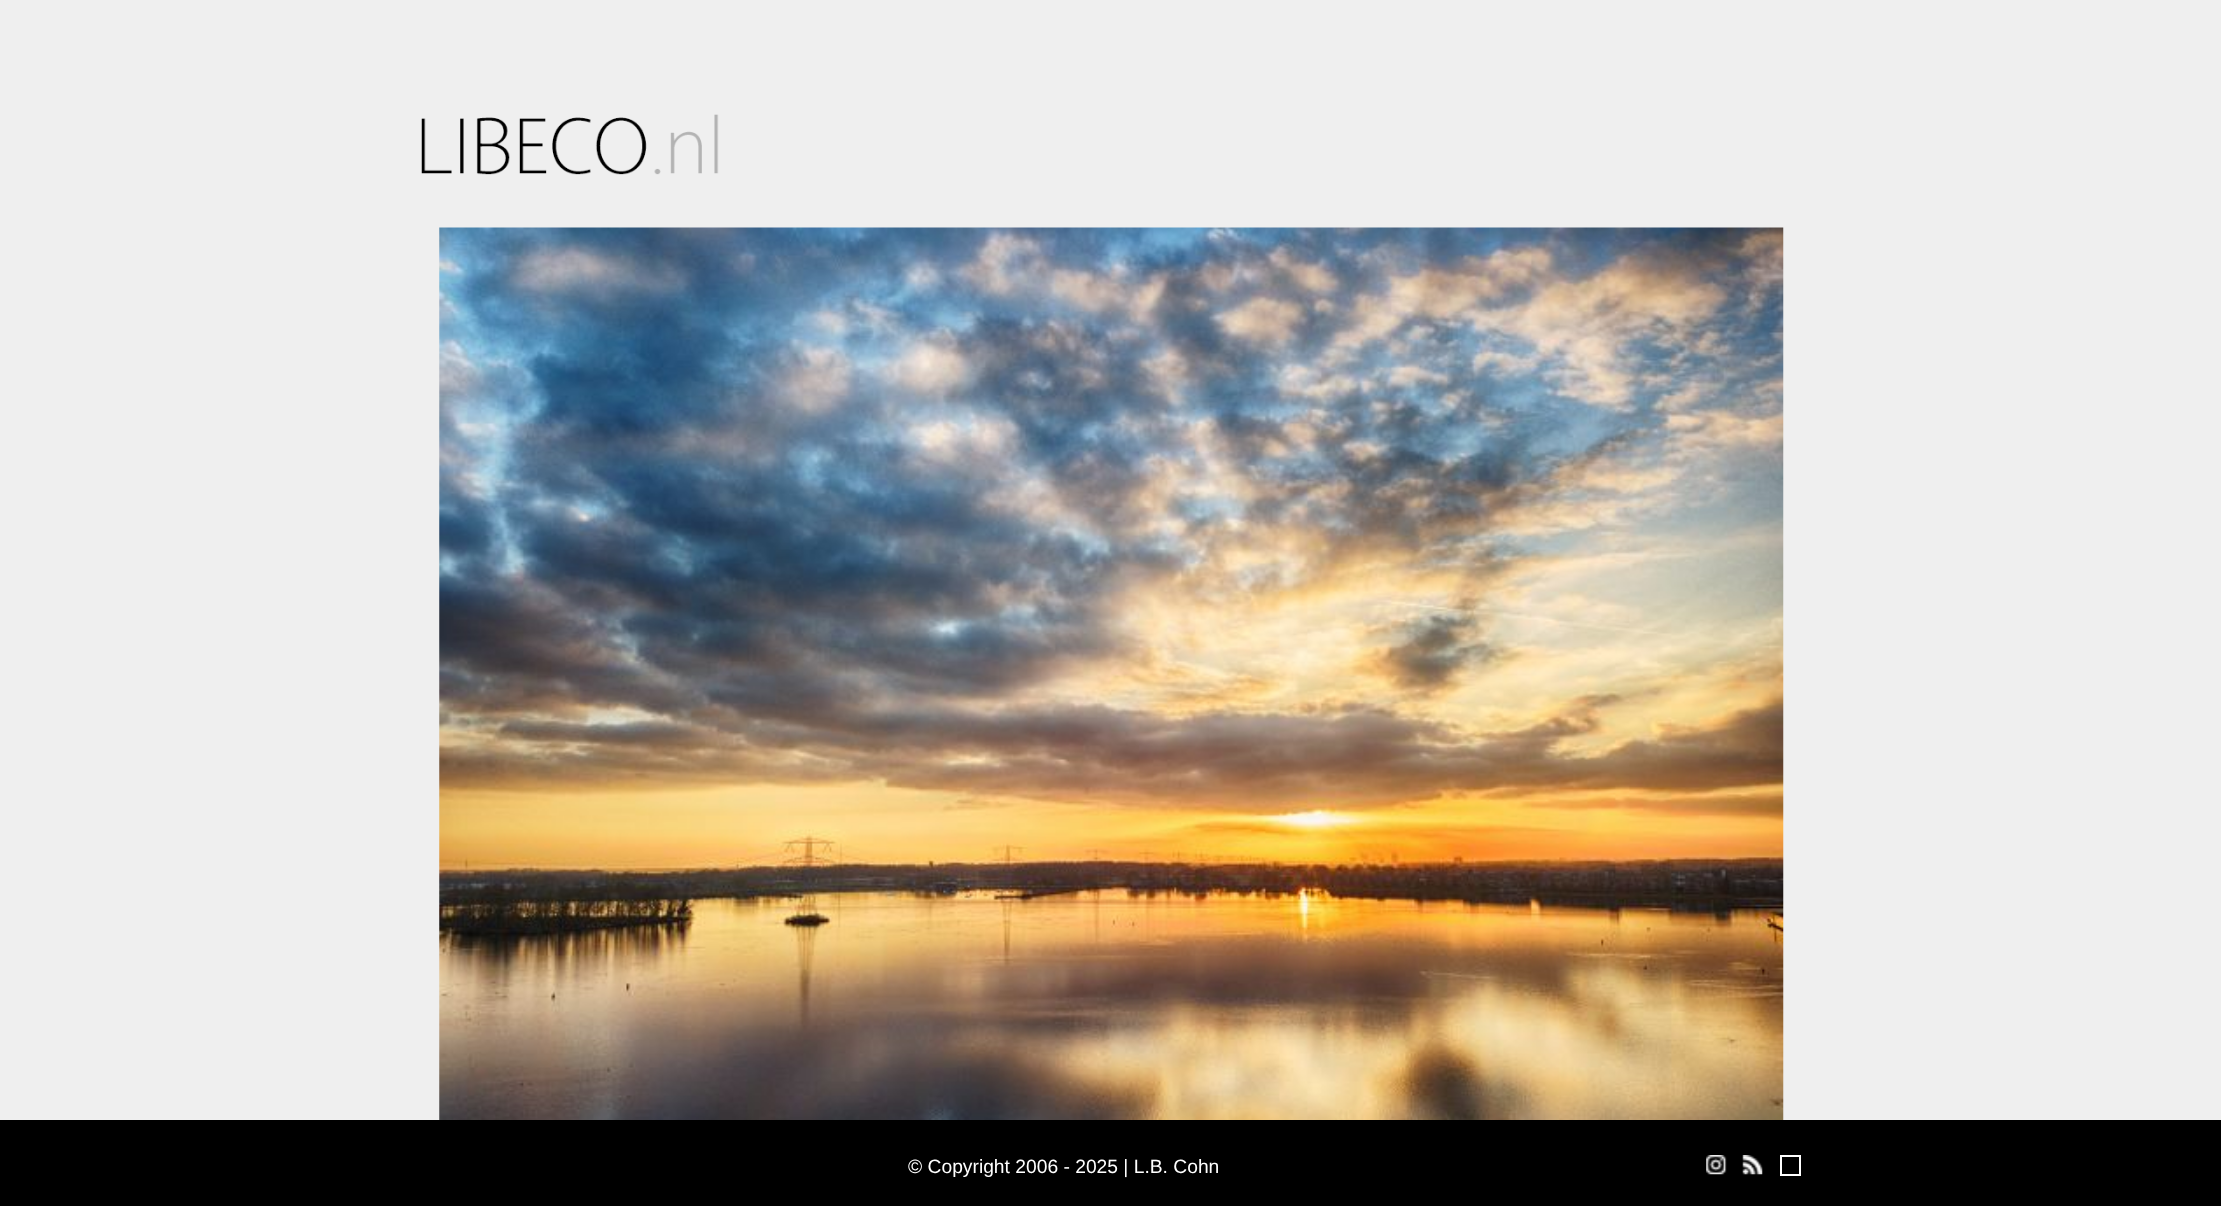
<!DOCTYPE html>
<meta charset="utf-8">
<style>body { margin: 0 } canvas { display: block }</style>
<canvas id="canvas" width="2221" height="1206"></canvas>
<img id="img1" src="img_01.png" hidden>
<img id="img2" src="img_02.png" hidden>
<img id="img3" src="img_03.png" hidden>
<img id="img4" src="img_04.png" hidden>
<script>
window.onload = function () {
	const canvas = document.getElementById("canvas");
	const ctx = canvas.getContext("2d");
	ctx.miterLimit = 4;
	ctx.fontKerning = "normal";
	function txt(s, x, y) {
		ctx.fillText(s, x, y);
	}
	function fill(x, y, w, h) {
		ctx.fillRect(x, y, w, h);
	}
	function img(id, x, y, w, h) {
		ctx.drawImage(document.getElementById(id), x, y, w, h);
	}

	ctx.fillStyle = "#EFEFEF";
	fill(0, 0, 2221, 1206);
	img("img1", 421, 114, 298, 61);
	img("img2", 439, 227, 1345, 893);
	ctx.fillStyle = "#000000";
	fill(0, 1120, 2221, 86);
	img("img3", 1706, 1155, 21, 20);
	img("img4", 1742, 1155, 21, 20);
	ctx.strokeStyle = "#FFFFFF";
	ctx.lineWidth = 2;
	ctx.strokeRect(1781, 1156, 19, 19);
	ctx.font = "19.25px Liberation Sans";
	ctx.fillStyle = "#FFFFFF";
	txt("© Copyright 2006 - 2025 | L.B. Cohn", 908, 1173);
};
</script>
